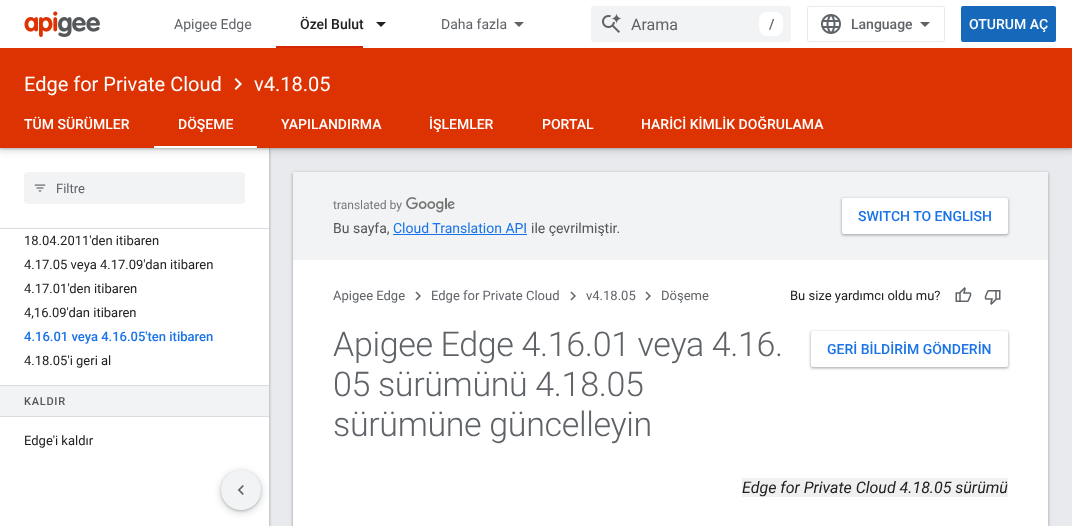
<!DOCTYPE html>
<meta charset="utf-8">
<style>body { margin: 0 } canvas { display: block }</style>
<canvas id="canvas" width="1072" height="526"></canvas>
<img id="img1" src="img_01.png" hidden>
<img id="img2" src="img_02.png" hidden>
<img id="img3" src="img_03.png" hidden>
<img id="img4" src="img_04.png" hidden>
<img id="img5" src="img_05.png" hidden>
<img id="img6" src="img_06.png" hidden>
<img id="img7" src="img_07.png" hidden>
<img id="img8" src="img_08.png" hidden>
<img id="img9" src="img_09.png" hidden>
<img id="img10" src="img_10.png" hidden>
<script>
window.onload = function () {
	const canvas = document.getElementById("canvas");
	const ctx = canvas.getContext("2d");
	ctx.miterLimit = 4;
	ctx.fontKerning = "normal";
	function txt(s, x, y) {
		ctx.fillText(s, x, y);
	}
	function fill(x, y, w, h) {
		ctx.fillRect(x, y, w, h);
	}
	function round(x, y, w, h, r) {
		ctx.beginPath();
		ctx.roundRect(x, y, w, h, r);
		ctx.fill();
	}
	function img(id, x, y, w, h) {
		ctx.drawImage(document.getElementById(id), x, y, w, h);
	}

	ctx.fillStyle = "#E8EAED";
	fill(0, 0, 1072, 526);
	ctx.fillStyle = "rgba(60, 64, 67, 0.15)";
	ctx.filter = "blur(1.5px)";
	ctx.beginPath();
	ctx.rect(-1, 0, 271, 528);
	ctx.fill();
	ctx.filter = "none";
	ctx.fillStyle = "rgba(60, 64, 67, 0.3)";
	ctx.filter = "blur(1px)";
	ctx.beginPath();
	ctx.rect(0, 1, 269, 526);
	ctx.fill();
	ctx.filter = "none";
	ctx.fillStyle = "#FFFFFF";
	fill(0, 229, 269, 297);
	fill(0, 148, 269, 80);
	ctx.fillStyle = "rgba(60, 64, 67, 0.15)";
	ctx.filter = "blur(3px)";
	ctx.beginPath();
	ctx.rect(-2, 48, 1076, 104);
	ctx.fill();
	ctx.filter = "none";
	ctx.fillStyle = "rgba(60, 64, 67, 0.3)";
	ctx.filter = "blur(1px)";
	ctx.beginPath();
	ctx.rect(0, 49, 1072, 100);
	ctx.fill();
	ctx.filter = "none";
	ctx.fillStyle = "#FFFFFF";
	fill(0, 0, 1072, 48);
	img("img1", 24, 11, 76, 26);
	ctx.fillStyle = "#D42702";
	fill(276, 46, 87, 2);
	ctx.fillStyle = "#202124";
	ctx.beginPath();
	ctx.moveTo(376, 22);
	ctx.lineTo(386, 22);
	ctx.lineTo(381, 27);
	ctx.closePath();
	ctx.fill();
	ctx.fillStyle = "#5F6368";
	ctx.beginPath();
	ctx.moveTo(514, 22);
	ctx.lineTo(524, 22);
	ctx.lineTo(519, 27);
	ctx.closePath();
	ctx.fill();
	ctx.fillStyle = "#F1F3F4";
	round(591, 6, 200, 36, 2);
	img("img2", 602, 13, 20, 20);
	ctx.fillStyle = "#FFFFFF";
	round(759, 12, 24, 24, 8);
	ctx.beginPath();
	ctx.roundRect(807.5, 6.5, 137, 35, 1.5);
	ctx.strokeStyle = "#E8EAED";
	ctx.stroke();
	img("img3", 821, 14, 20, 20);
	ctx.fillStyle = "#5F6368";
	ctx.beginPath();
	ctx.moveTo(925, 27);
	ctx.lineTo(920, 22);
	ctx.lineTo(930, 22);
	ctx.closePath();
	ctx.fill();
	ctx.fillStyle = "#1568BA";
	round(961, 6, 95, 36, 2);
	ctx.fillStyle = "#DD3303";
	fill(0, 48, 1072, 100);
	img("img4", 234, 78, 8, 12);
	ctx.fillStyle = "#FFFFFF";
	fill(154, 146, 103, 2);
	ctx.fillStyle = "#DADCE0";
	fill(0, 228, 269, 1);
	ctx.fillStyle = "#F1F3F4";
	round(24, 172, 221, 32, 4);
	img("img5", 34, 184, 12, 8);
	fill(0, 386, 269, 30);
	ctx.fillStyle = "#DADCE0";
	fill(0, 385, 269, 1);
	fill(0, 416, 269, 1);
	ctx.fillStyle = "rgba(60, 64, 67, 0.15)";
	ctx.filter = "blur(3px)";
	ctx.beginPath();
	ctx.roundRect(219, 470, 44, 44, 22);
	ctx.fill();
	ctx.filter = "none";
	ctx.fillStyle = "rgba(60, 64, 67, 0.3)";
	ctx.filter = "blur(1px)";
	ctx.beginPath();
	ctx.roundRect(221, 471, 40, 40, 20);
	ctx.fill();
	ctx.filter = "none";
	ctx.fillStyle = "#F1F3F4";
	ctx.beginPath();
	ctx.arc(241, 490, 20, 0, Math.PI * 2);
	ctx.fill();
	img("img6", 237, 485, 7, 10);
	ctx.fillStyle = "rgba(60, 64, 67, 0.15)";
	ctx.filter = "blur(1.5px)";
	ctx.beginPath();
	ctx.roundRect(292, 172, 757, 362, 3);
	ctx.fill();
	ctx.filter = "none";
	ctx.fillStyle = "rgba(60, 64, 67, 0.3)";
	ctx.filter = "blur(1px)";
	ctx.beginPath();
	ctx.roundRect(293, 173, 755, 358, 2);
	ctx.fill();
	ctx.filter = "none";
	ctx.fillStyle = "#FFFFFF";
	fill(293, 260, 755, 266);
	ctx.fillStyle = "#F1F3F4";
	fill(293, 172, 755, 88);
	ctx.fillStyle = "rgba(60, 64, 67, 0.15)";
	ctx.filter = "blur(1.5px)";
	ctx.beginPath();
	ctx.roundRect(841, 198, 168, 38, 3);
	ctx.fill();
	ctx.filter = "none";
	ctx.fillStyle = "rgba(60, 64, 67, 0.3)";
	ctx.filter = "blur(1px)";
	ctx.beginPath();
	ctx.roundRect(842, 199, 166, 36, 2);
	ctx.fill();
	ctx.filter = "none";
	ctx.fillStyle = "#FFFFFF";
	round(842, 198, 166, 36, 2);
	img("img7", 333, 197, 122, 16);
	ctx.fillStyle = "#1A73E8";
	fill(393, 234, 134, 1);
	img("img8", 415, 291, 6, 10);
	img("img8", 570, 291, 6, 10);
	img("img8", 645, 291, 6, 10);
	img("img9", 955, 287, 17, 15);
	img("img10", 984, 290, 17, 15);
	ctx.fillStyle = "rgba(60, 64, 67, 0.15)";
	ctx.filter = "blur(1.5px)";
	ctx.beginPath();
	ctx.roundRect(810, 331, 199, 38, 3);
	ctx.fill();
	ctx.filter = "none";
	ctx.fillStyle = "rgba(60, 64, 67, 0.3)";
	ctx.filter = "blur(1px)";
	ctx.beginPath();
	ctx.roundRect(811, 332, 197, 36, 2);
	ctx.fill();
	ctx.filter = "none";
	ctx.fillStyle = "#FFFFFF";
	round(811, 331, 197, 36, 2);
	ctx.fillStyle = "#F0F0F0";
	fill(742, 478, 266, 19);
	ctx.font = "14px Roboto";
	ctx.fillStyle = "#5F6368";
	txt("Apigee Edge", 174, 29);
	ctx.font = "500 14px Roboto";
	ctx.fillStyle = "#202124";
	txt("Özel Bulut", 300, 29);
	ctx.font = "14px Roboto";
	ctx.fillStyle = "#5F6368";
	txt("Daha fazla", 441, 29);
	ctx.font = "16px Roboto";
	txt("Arama", 631, 30);
	ctx.font = "500 14px Roboto";
	txt("/", 769, 29);
	txt("Language", 851, 29);
	ctx.fillStyle = "#FFFFFF";
	txt("OTURUM AÇ", 969, 29);
	ctx.font = "20px Roboto";
	txt("Edge for Private Cloud", 24, 91);
	txt("v4.18.05", 254, 91);
	ctx.font = "500 14px Roboto";
	txt("TÜM SÜRÜMLER", 24, 129);
	txt("DÖŞEME", 178, 129);
	txt("YAPILANDIRMA", 281, 129);
	txt("İŞLEMLER", 429, 129);
	txt("PORTAL", 542, 129);
	txt("HARİCİ KİMLİK DOĞRULAMA", 641, 129);
	ctx.font = "13px Roboto";
	ctx.fillStyle = "#5F6368";
	txt("Filtre", 56, 193);
	ctx.fillStyle = "#202124";
	txt("18.04.2011'den itibaren", 24, 245);
	txt("4.17.05 veya 4.17.09'dan itibaren", 24, 269);
	txt("4.17.01'den itibaren", 24, 293);
	txt("4,16.09'dan itibaren", 24, 317);
	ctx.font = "500 13px Roboto";
	ctx.fillStyle = "#1A73E8";
	txt("4.16.01 veya 4.16.05'ten itibaren", 24, 341);
	ctx.font = "13px Roboto";
	ctx.fillStyle = "#202124";
	txt("4.18.05'i geri al", 24, 365);
	ctx.letterSpacing = "0.75px";
	ctx.font = "500 11px Roboto";
	ctx.fillStyle = "#545555";
	txt("KALDIR", 24, 405);
	ctx.letterSpacing = "0px";
	ctx.font = "13px Roboto";
	ctx.fillStyle = "#202124";
	txt("Edge'i kaldır", 24, 445);
	ctx.font = "500 14px Roboto";
	ctx.fillStyle = "#1A73E8";
	txt("SWITCH TO ENGLISH", 858, 221);
	ctx.font = "14px Roboto";
	ctx.fillStyle = "#545555";
	txt("Bu sayfa,", 333, 233);
	ctx.fillStyle = "#1A73E8";
	txt("Cloud Translation API", 393, 233);
	ctx.fillStyle = "#545555";
	txt("ile çevrilmiştir.", 531, 233);
	ctx.font = "13px Roboto";
	ctx.fillStyle = "#5F6368";
	txt("Apigee Edge", 333, 300);
	txt("Edge for Private Cloud", 431, 300);
	txt("v4.18.05", 586, 300);
	txt("Döşeme", 661, 300);
	ctx.fillStyle = "#202124";
	txt("Bu size yardımcı oldu mu?", 790, 300);
	ctx.letterSpacing = "-0.35px";
	ctx.font = "300 34px Roboto";
	ctx.fillStyle = "#5F6368";
	txt("Apigee Edge 4.16.01 veya 4.16.", 333, 356);
	ctx.letterSpacing = "0px";
	ctx.font = "500 14px Roboto";
	ctx.fillStyle = "#1A73E8";
	txt("GERİ BİLDİRİM GÖNDERİN", 827, 354);
	ctx.letterSpacing = "-0.35px";
	ctx.font = "300 34px Roboto";
	ctx.fillStyle = "#5F6368";
	txt("05 sürümünü 4.18.05", 333, 396);
	txt("sürümüne güncelleyin", 333, 436);
	ctx.letterSpacing = "0px";
	ctx.font = "italic 16px Roboto";
	ctx.fillStyle = "#202124";
	txt("Edge for Private Cloud 4.18.05 sürümü", 742, 493);
};
</script>
